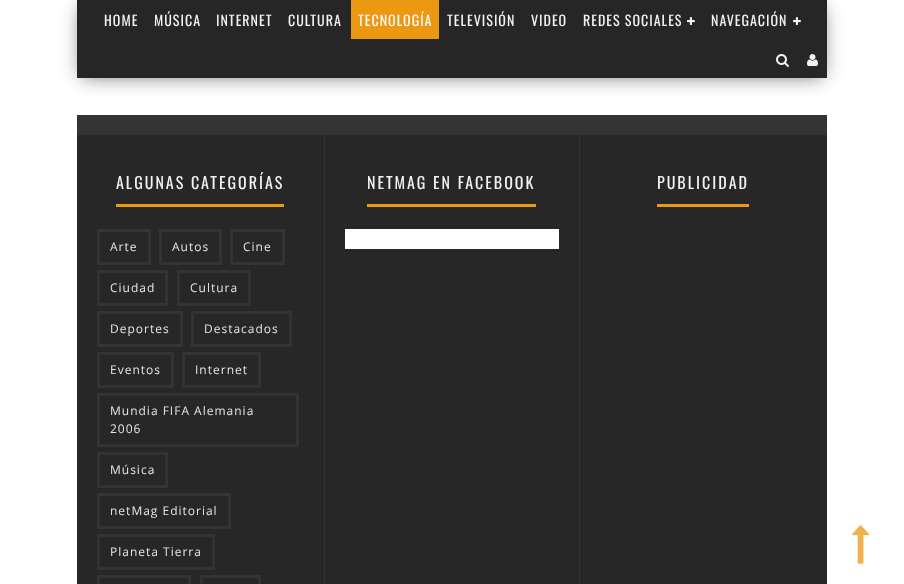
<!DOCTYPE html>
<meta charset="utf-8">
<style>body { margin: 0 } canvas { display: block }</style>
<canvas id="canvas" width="904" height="584"></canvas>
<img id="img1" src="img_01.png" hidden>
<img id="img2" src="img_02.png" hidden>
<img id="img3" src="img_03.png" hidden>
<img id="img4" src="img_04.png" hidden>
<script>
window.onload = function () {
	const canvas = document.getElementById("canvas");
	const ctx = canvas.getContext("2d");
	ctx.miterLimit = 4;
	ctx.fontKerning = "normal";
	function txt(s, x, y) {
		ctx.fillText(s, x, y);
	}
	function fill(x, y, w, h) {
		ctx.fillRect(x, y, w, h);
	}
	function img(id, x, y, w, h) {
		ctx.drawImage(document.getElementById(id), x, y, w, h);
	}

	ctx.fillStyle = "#FFFFFF";
	fill(0, 0, 904, 584);
	ctx.fillStyle = "rgba(0, 0, 0, 0.6)";
	ctx.filter = "blur(10px)";
	ctx.beginPath();
	ctx.rect(82, 8, 740, 68);
	ctx.fill();
	ctx.filter = "none";
	ctx.fillStyle = "#262626";
	fill(77, 0, 750, 78);
	ctx.fillStyle = "#EB9812";
	fill(351, 0, 88, 39);
	img("img1", 687, 17, 8, 8);
	img("img1", 793, 17, 8, 8);
	img("img2", 776, 54, 13, 13);
	img("img3", 807, 54, 11, 12);
	img("img4", 852, 525, 18, 39);
	ctx.fillStyle = "#272727";
	fill(77, 135, 750, 449);
	ctx.fillStyle = "#333333";
	fill(77, 115, 750, 20);
	fill(324, 135, 1, 449);
	ctx.fillStyle = "#EB9812";
	fill(116, 204, 168, 3);
	ctx.strokeStyle = "#333333";
	ctx.lineWidth = 3;
	ctx.strokeRect(98.5, 230.5, 51, 33);
	ctx.strokeRect(160.5, 230.5, 60, 33);
	ctx.strokeRect(231.5, 230.5, 52, 33);
	ctx.strokeRect(98.5, 271.5, 68, 33);
	ctx.strokeRect(178.5, 271.5, 71, 33);
	ctx.strokeRect(98.5, 312.5, 83, 33);
	ctx.strokeRect(192.5, 312.5, 98, 33);
	ctx.strokeRect(98.5, 353.5, 74, 33);
	ctx.strokeRect(183.5, 353.5, 76, 33);
	ctx.strokeRect(98.5, 394.5, 199, 51);
	ctx.strokeRect(98.5, 453.5, 68, 33);
	ctx.strokeRect(98.5, 494.5, 131, 33);
	ctx.strokeRect(98.5, 535.5, 115, 33);
	ctx.strokeRect(98.5, 576.5, 91, 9);
	ctx.strokeRect(201.5, 576.5, 58, 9);
	ctx.fillStyle = "#333333";
	fill(579, 135, 1, 449);
	ctx.fillStyle = "#EB9812";
	fill(367, 204, 169, 3);
	ctx.fillStyle = "#FFFFFF";
	fill(345, 229, 214, 20);
	ctx.fillStyle = "#EB9812";
	fill(657, 204, 92, 3);
	ctx.letterSpacing = "1px";
	ctx.font = "14px Oswald";
	ctx.fillStyle = "#F2F2F2";
	txt("HOME", 104, 26);
	txt("MÚSICA", 154, 26);
	txt("INTERNET", 216, 26);
	txt("CULTURA", 288, 26);
	ctx.fillStyle = "#FAFAFA";
	txt("TECNOLOGÍA", 358, 26);
	ctx.fillStyle = "#F2F2F2";
	txt("TELEVISIÓN", 447, 26);
	txt("VIDEO", 531, 26);
	txt("REDES SOCIALES", 583, 26);
	txt("NAVEGACIÓN", 711, 26);
	ctx.letterSpacing = "2px";
	ctx.font = "16px Oswald";
	txt("ALGUNAS CATEGORÍAS", 116, 189);
	ctx.letterSpacing = "1px";
	ctx.font = "12px Open Sans";
	ctx.fillStyle = "#E5E5E5";
	txt("Arte", 110, 251);
	txt("Autos", 172, 251);
	txt("Cine", 243, 251);
	txt("Ciudad", 110, 292);
	txt("Cultura", 190, 292);
	txt("Deportes", 110, 333);
	txt("Destacados", 204, 333);
	txt("Eventos", 110, 374);
	txt("Internet", 195, 374);
	txt("Mundia FIFA Alemania", 110, 415);
	txt("2006", 110, 433);
	txt("Música", 110, 474);
	txt("netMag Editorial", 110, 515);
	txt("Planeta Tierra", 110, 556);
	ctx.letterSpacing = "2px";
	ctx.font = "16px Oswald";
	ctx.fillStyle = "#F2F2F2";
	txt("NETMAG EN FACEBOOK", 367, 189);
	txt("PUBLICIDAD", 657, 189);
};
</script>
